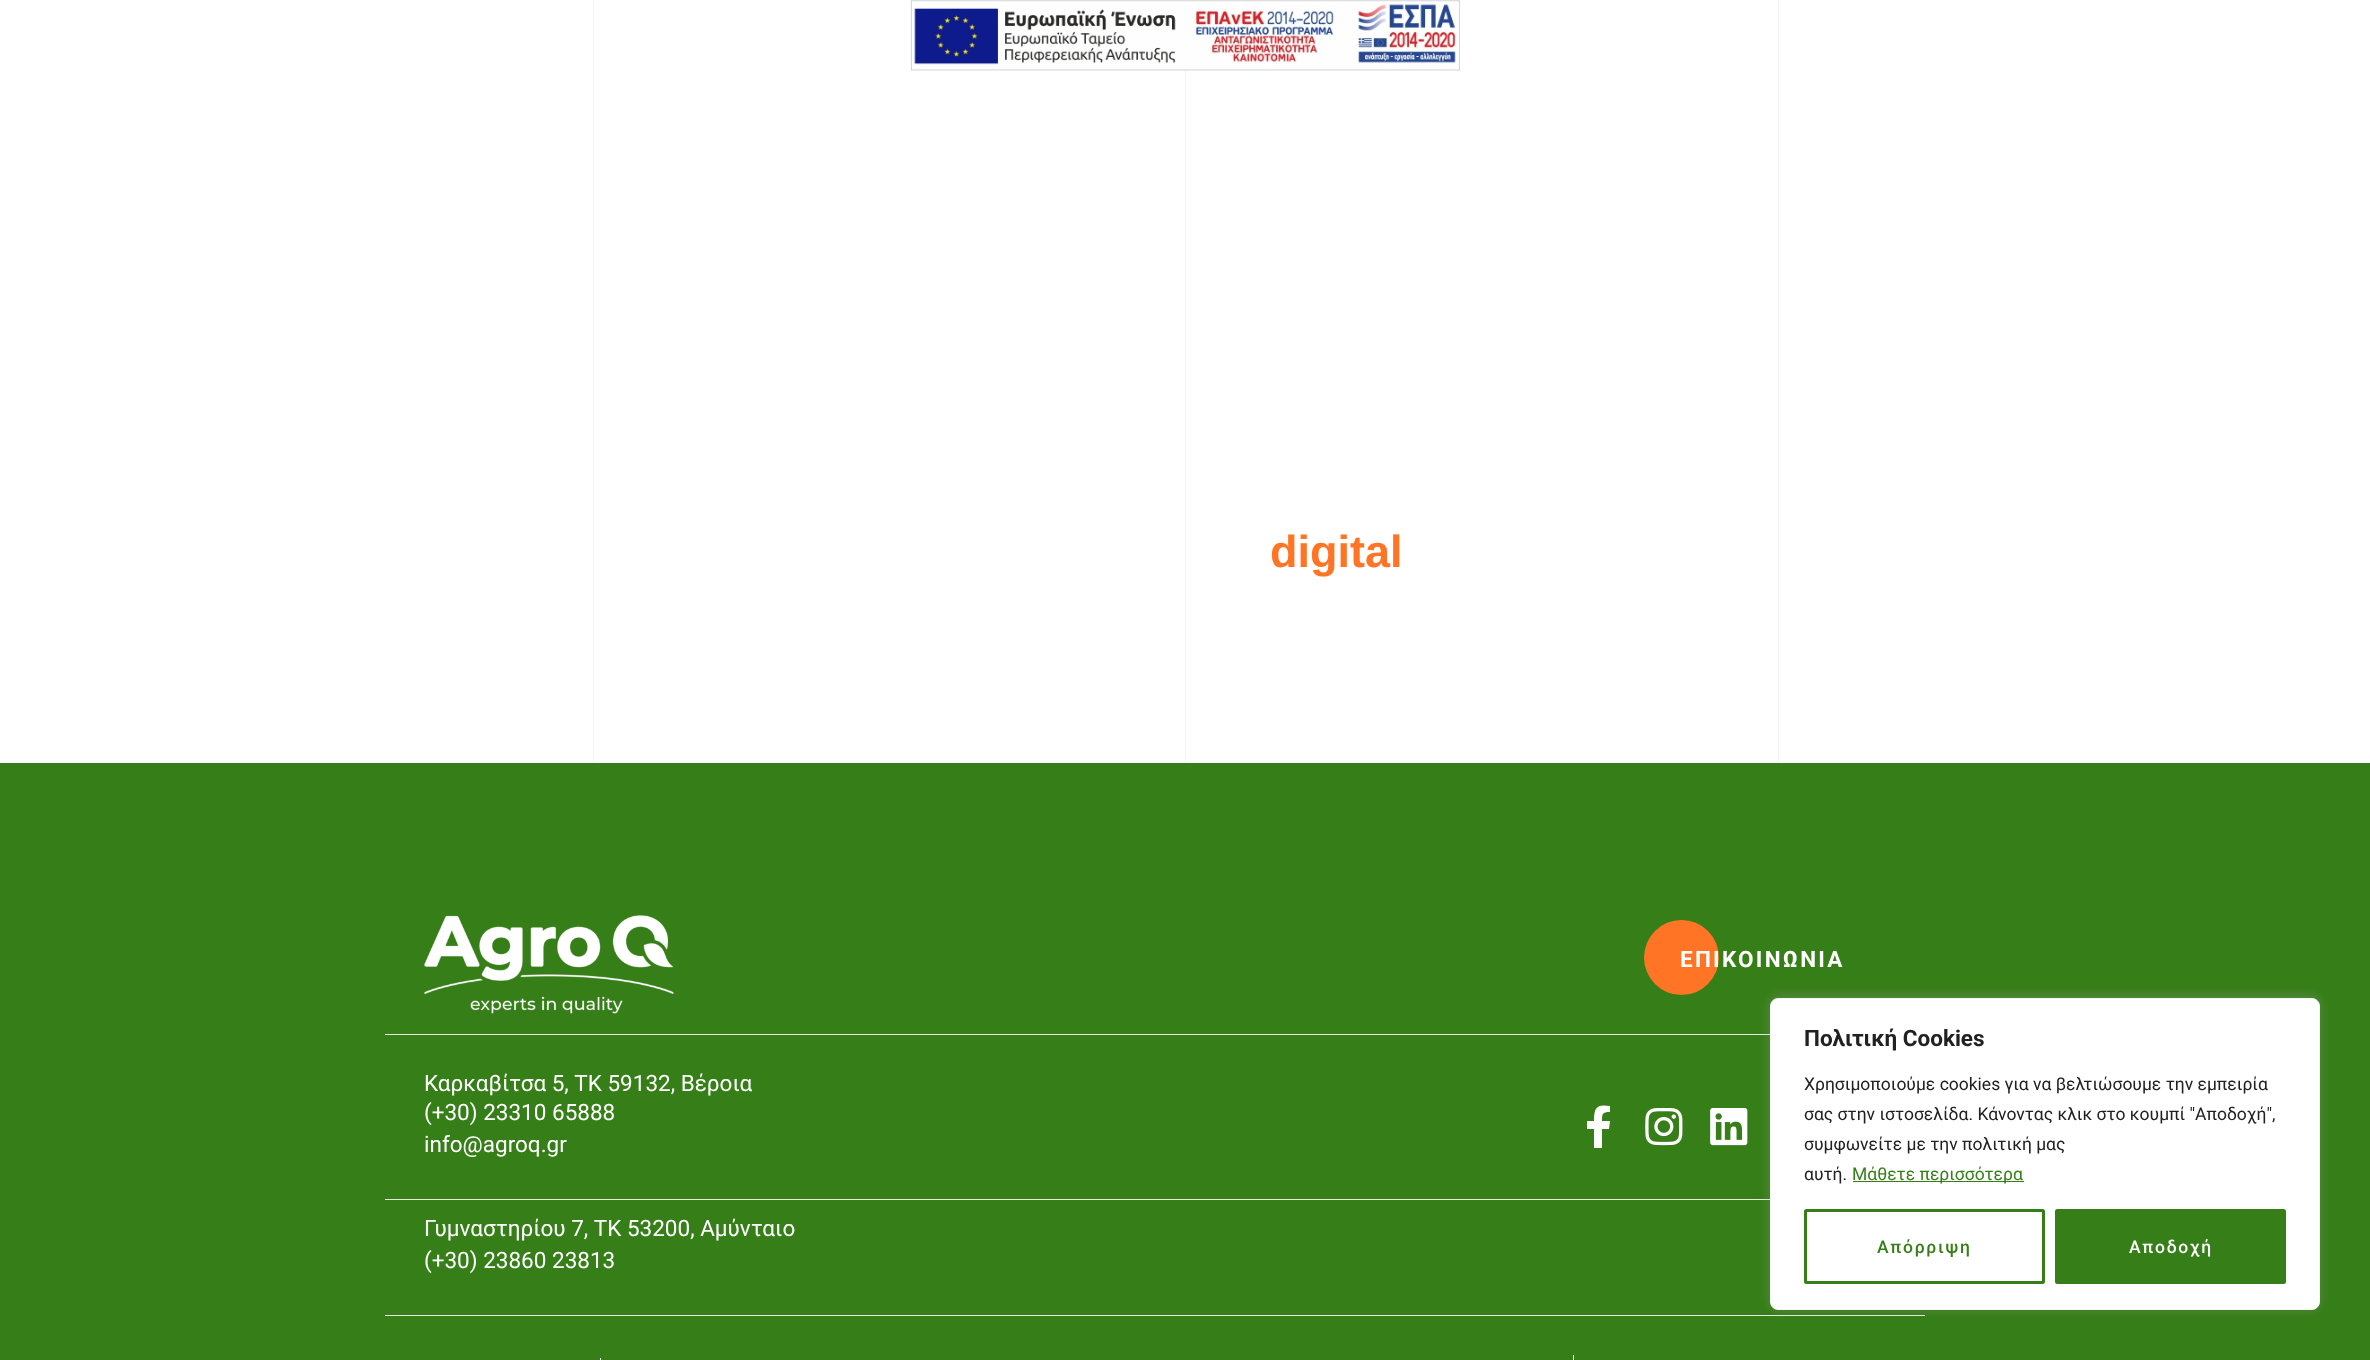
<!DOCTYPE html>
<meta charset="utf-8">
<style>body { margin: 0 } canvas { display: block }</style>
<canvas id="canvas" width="2370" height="1360"></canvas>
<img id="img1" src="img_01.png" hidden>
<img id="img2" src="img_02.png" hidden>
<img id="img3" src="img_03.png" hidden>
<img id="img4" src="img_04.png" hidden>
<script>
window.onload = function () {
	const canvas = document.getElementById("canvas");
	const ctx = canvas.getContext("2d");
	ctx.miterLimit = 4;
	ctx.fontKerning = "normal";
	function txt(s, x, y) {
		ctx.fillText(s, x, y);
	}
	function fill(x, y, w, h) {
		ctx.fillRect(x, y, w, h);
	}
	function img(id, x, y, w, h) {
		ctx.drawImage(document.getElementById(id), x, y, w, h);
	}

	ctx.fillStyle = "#FFFFFF";
	fill(0, 0, 2370, 1360);
	ctx.fillStyle = "#F4F4F4";
	fill(593, 0, 1, 763);
	fill(1185, 71, 1, 692);
	fill(1778, 0, 1, 763);
	img("img1", 910, 0, 550, 71);
	ctx.fillStyle = "#367E18";
	fill(0, 763, 2370, 597);
	ctx.fillStyle = "#E7E7E7";
	fill(385, 1034, 1385, 1);
	img("img2", 424, 915, 250, 99);
	ctx.fillStyle = "#FF7425";
	ctx.beginPath();
	ctx.arc(1681.5, 957.5, 37.5, 0, Math.PI * 2);
	ctx.fill();
	ctx.fillStyle = "#E7E7E7";
	fill(385, 1199, 1385, 1);
	ctx.fillStyle = "#FFFFFF";
	ctx.beginPath();
	ctx.moveTo(1609, 1129);
	ctx.lineTo(1602, 1129);
	ctx.lineTo(1602, 1148);
	ctx.lineTo(1594, 1148);
	ctx.lineTo(1594, 1129);
	ctx.lineTo(1587, 1129);
	ctx.lineTo(1587, 1121);
	ctx.lineTo(1594, 1121);
	ctx.bezierCurveTo(1594, 1107, 1597, 1104, 1610, 1106);
	ctx.lineTo(1610, 1112);
	ctx.bezierCurveTo(1602, 1112, 1602, 1114, 1602, 1121);
	ctx.lineTo(1610, 1121);
	ctx.closePath();
	ctx.fill();
	img("img3", 1645, 1108, 38, 38);
	img("img4", 1710, 1108, 38, 38);
	ctx.fillStyle = "#E7E7E7";
	fill(385, 1315, 1540, 1);
	ctx.fillStyle = "#FFFFFF";
	fill(600, 1358, 1, 2);
	fill(1573, 1355, 1, 5);
	ctx.fillStyle = "rgba(172, 171, 171, 0.3)";
	ctx.filter = "blur(6px)";
	ctx.beginPath();
	ctx.roundRect(1770, 996, 550, 313, 8);
	ctx.fill();
	ctx.filter = "none";
	ctx.fillStyle = "#FFFFFF";
	ctx.beginPath();
	ctx.roundRect(1770.5, 998.5, 549, 311, 7.5);
	ctx.fill();
	ctx.strokeStyle = "#F4F4F4";
	ctx.stroke();
	ctx.fillStyle = "#367E18";
	fill(1853, 1181, 171, 1);
	ctx.beginPath();
	ctx.roundRect(1805.5, 1210.5, 238, 72, 1);
	ctx.strokeStyle = "#367E18";
	ctx.lineWidth = 3;
	ctx.stroke();
	ctx.beginPath();
	ctx.roundRect(2056.5, 1210.5, 228, 72, 1);
	ctx.fill();
	ctx.stroke();
	ctx.font = "bold 45px Arimo";
	ctx.fillStyle = "#FF7425";
	txt("digital", 1270, 567);
	ctx.letterSpacing = "2.25px";
	ctx.font = "bold 22.5px Roboto";
	ctx.fillStyle = "#FFFFFF";
	txt("ΕΠΙΚΟΙΝΩΝΙΑ", 1680, 967);
	ctx.letterSpacing = "0px";
	ctx.font = "22.5px Roboto";
	txt("Καρκαβίτσα 5, ΤΚ 59132, Βέροια", 424, 1091);
	txt("(+30) 23310 65888", 424, 1120);
	txt("info@agroq.gr", 424, 1152);
	txt("Γυμναστηρίου 7, ΤΚ 53200, Αμύνταιο", 424, 1236);
	txt("(+30) 23860 23813", 424, 1268);
	ctx.font = "bold 22.5px Roboto";
	ctx.fillStyle = "#212121";
	txt("Πολιτική Cookies", 1804, 1046);
	ctx.font = "17.5px Roboto";
	txt("Χρησιμοποιούμε cookies για να βελτιώσουμε την εμπειρία", 1804, 1090);
	txt("σας στην ιστοσελίδα. Κάνοντας κλικ στο κουμπί \"Αποδοχή\",", 1804, 1120);
	txt("συμφωνείτε με την πολιτική μας", 1804, 1150);
	txt("αυτή.", 1804, 1180);
	ctx.fillStyle = "#367E18";
	txt("Μάθετε περισσότερα", 1852, 1180);
	ctx.letterSpacing = "1.75px";
	ctx.font = "500 17.5px Roboto";
	txt("Απόρριψη", 1877, 1253);
	ctx.fillStyle = "#FFFFFF";
	txt("Αποδοχή", 2129, 1253);
};
</script>
